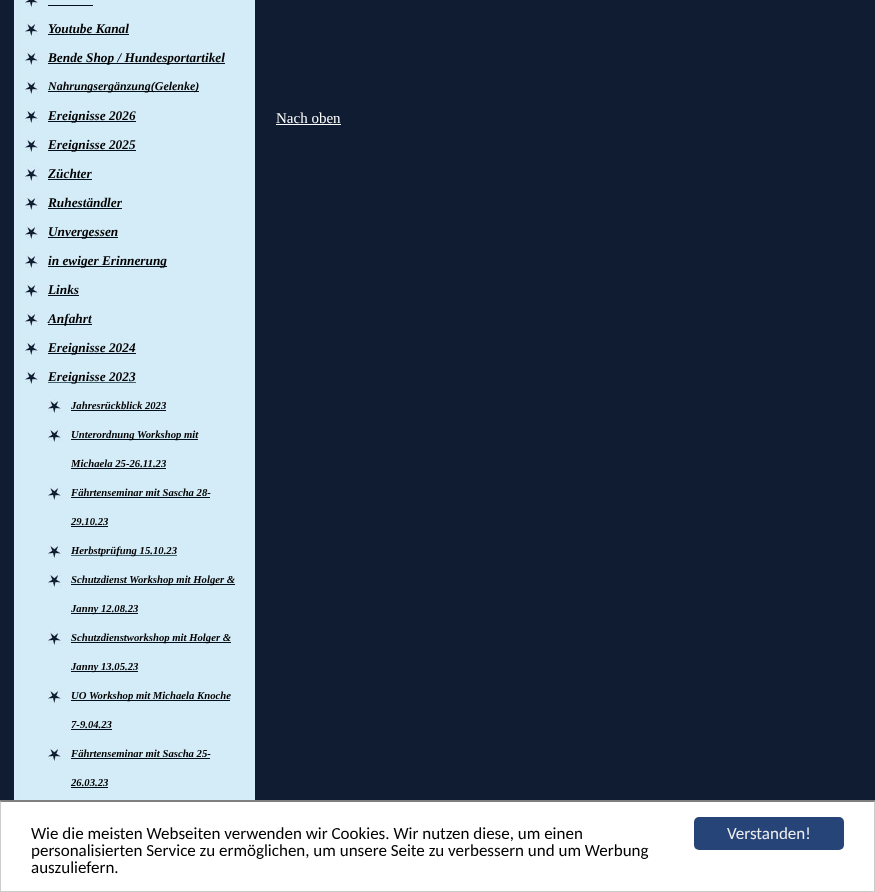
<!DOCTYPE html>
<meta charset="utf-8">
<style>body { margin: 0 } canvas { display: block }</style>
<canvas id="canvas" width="875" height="892"></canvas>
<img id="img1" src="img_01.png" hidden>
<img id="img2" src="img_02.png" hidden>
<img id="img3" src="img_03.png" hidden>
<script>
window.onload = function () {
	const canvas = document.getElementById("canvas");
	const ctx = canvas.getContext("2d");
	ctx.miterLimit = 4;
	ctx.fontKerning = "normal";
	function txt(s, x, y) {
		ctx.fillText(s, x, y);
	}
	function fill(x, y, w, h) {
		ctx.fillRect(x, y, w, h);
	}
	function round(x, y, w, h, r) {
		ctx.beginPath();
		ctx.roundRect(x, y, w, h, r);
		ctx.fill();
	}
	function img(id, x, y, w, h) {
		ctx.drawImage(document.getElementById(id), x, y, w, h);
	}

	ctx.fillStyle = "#FFFFFF";
	fill(0, 0, 875, 892);
	img("img1", 0, 0, 875, 802);
	img("img2", 25, 0, 14, 7);
	ctx.fillStyle = "#02101D";
	fill(48, 5, 45, 1);
	img("img3", 25, 20, 14, 16);
	fill(48, 34, 81, 1);
	img("img3", 25, 49, 14, 16);
	fill(48, 63, 177, 1);
	img("img3", 25, 78, 14, 16);
	fill(48, 91, 151, 1);
	img("img3", 25, 107, 14, 16);
	fill(48, 121, 88, 1);
	img("img3", 25, 136, 14, 16);
	fill(48, 150, 88, 1);
	img("img3", 25, 165, 14, 16);
	fill(48, 179, 44, 1);
	img("img3", 25, 194, 14, 16);
	fill(48, 208, 74, 1);
	img("img3", 25, 223, 14, 16);
	fill(48, 237, 70, 1);
	img("img3", 25, 252, 14, 16);
	fill(48, 266, 119, 1);
	img("img3", 25, 281, 14, 16);
	fill(48, 295, 31, 1);
	img("img3", 25, 310, 14, 16);
	fill(48, 324, 44, 1);
	img("img3", 25, 339, 14, 16);
	fill(48, 353, 88, 1);
	img("img3", 25, 368, 14, 16);
	ctx.fillStyle = "#43616C";
	fill(48, 382, 88, 1);
	img("img3", 48, 397, 14, 16);
	ctx.fillStyle = "#02101D";
	fill(71, 410, 95, 1);
	img("img3", 48, 426, 14, 16);
	fill(71, 439, 127, 1);
	fill(71, 468, 95, 1);
	img("img3", 48, 484, 14, 16);
	fill(71, 497, 139, 1);
	fill(71, 526, 37, 1);
	img("img3", 48, 542, 14, 16);
	ctx.fillStyle = "#43616C";
	fill(71, 555, 106, 1);
	img("img3", 48, 571, 14, 16);
	ctx.fillStyle = "#02101D";
	fill(71, 584, 164, 1);
	fill(71, 613, 67, 1);
	img("img3", 48, 629, 14, 16);
	fill(71, 642, 160, 1);
	fill(71, 671, 67, 1);
	img("img3", 48, 687, 14, 16);
	fill(71, 700, 159, 1);
	fill(71, 729, 41, 1);
	img("img3", 48, 745, 14, 16);
	fill(71, 758, 139, 1);
	fill(71, 787, 37, 1);
	ctx.fillStyle = "#FFFFFF";
	fill(276, 124, 65, 1);
	ctx.fillStyle = "#808080";
	ctx.beginPath();
	ctx.moveTo(0, 800);
	ctx.lineTo(875, 800);
	ctx.lineTo(874, 802);
	ctx.lineTo(1, 802);
	ctx.closePath();
	ctx.fill();
	ctx.fillStyle = "#CCCCCC";
	ctx.beginPath();
	ctx.moveTo(875, 800);
	ctx.lineTo(875, 892);
	ctx.lineTo(874, 891);
	ctx.lineTo(874, 802);
	ctx.closePath();
	ctx.fill();
	fill(0, 891, 875, 1);
	ctx.beginPath();
	ctx.moveTo(0, 892);
	ctx.lineTo(0, 800);
	ctx.lineTo(1, 802);
	ctx.lineTo(1, 891);
	ctx.closePath();
	ctx.fill();
	ctx.fillStyle = "#274479";
	round(694, 817, 150, 33, 5);
	ctx.font = "italic bold 13.3px Liberation Serif";
	ctx.fillStyle = "#000000";
	txt("Youtube Kanal", 48, 33);
	txt("Bende Shop / Hundesportartikel", 48, 62);
	ctx.font = "italic bold 12px Liberation Serif";
	txt("Nahrungsergänzung(Gelenke)", 48, 90);
	ctx.font = "italic bold 13.3px Liberation Serif";
	txt("Ereignisse 2026", 48, 120);
	txt("Ereignisse 2025", 48, 149);
	txt("Züchter", 48, 178);
	txt("Ruheständler", 48, 207);
	txt("Unvergessen", 48, 236);
	txt("in ewiger Erinnerung", 48, 265);
	txt("Links", 48, 294);
	txt("Anfahrt", 48, 323);
	txt("Ereignisse 2024", 48, 352);
	txt("Ereignisse 2023", 48, 381);
	ctx.font = "italic bold 10.7px Liberation Serif";
	txt("Jahresrückblick 2023", 71, 409);
	txt("Unterordnung Workshop mit", 71, 438);
	txt("Michaela 25-26.11.23", 71, 467);
	txt("Fährtenseminar mit Sascha 28-", 71, 496);
	txt("29.10.23", 71, 525);
	txt("Herbstprüfung 15.10.23", 71, 554);
	txt("Schutzdienst Workshop mit Holger &", 71, 583);
	txt("Janny 12.08.23", 71, 612);
	txt("Schutzdienstworkshop mit Holger &", 71, 641);
	txt("Janny 13.05.23", 71, 670);
	txt("UO Workshop mit Michaela Knoche", 71, 699);
	txt("7-9.04.23", 71, 728);
	txt("Fährtenseminar mit Sascha 25-", 71, 757);
	txt("26.03.23", 71, 786);
	ctx.font = "15px Liberation Serif";
	ctx.fillStyle = "#FFFFFF";
	txt("Nach oben", 276, 123);
	ctx.font = "17px Carlito";
	ctx.fillStyle = "#000000";
	txt("Wie die meisten Webseiten verwenden wir Cookies. Wir nutzen diese, um einen", 31, 839);
	txt("personalisierten Service zu ermöglichen, um unsere Seite zu verbessern und um Werbung", 31, 856);
	txt("auszuliefern.", 31, 873);
	ctx.fillStyle = "#EEEEEE";
	txt("Verstanden!", 727, 839);
};
</script>
